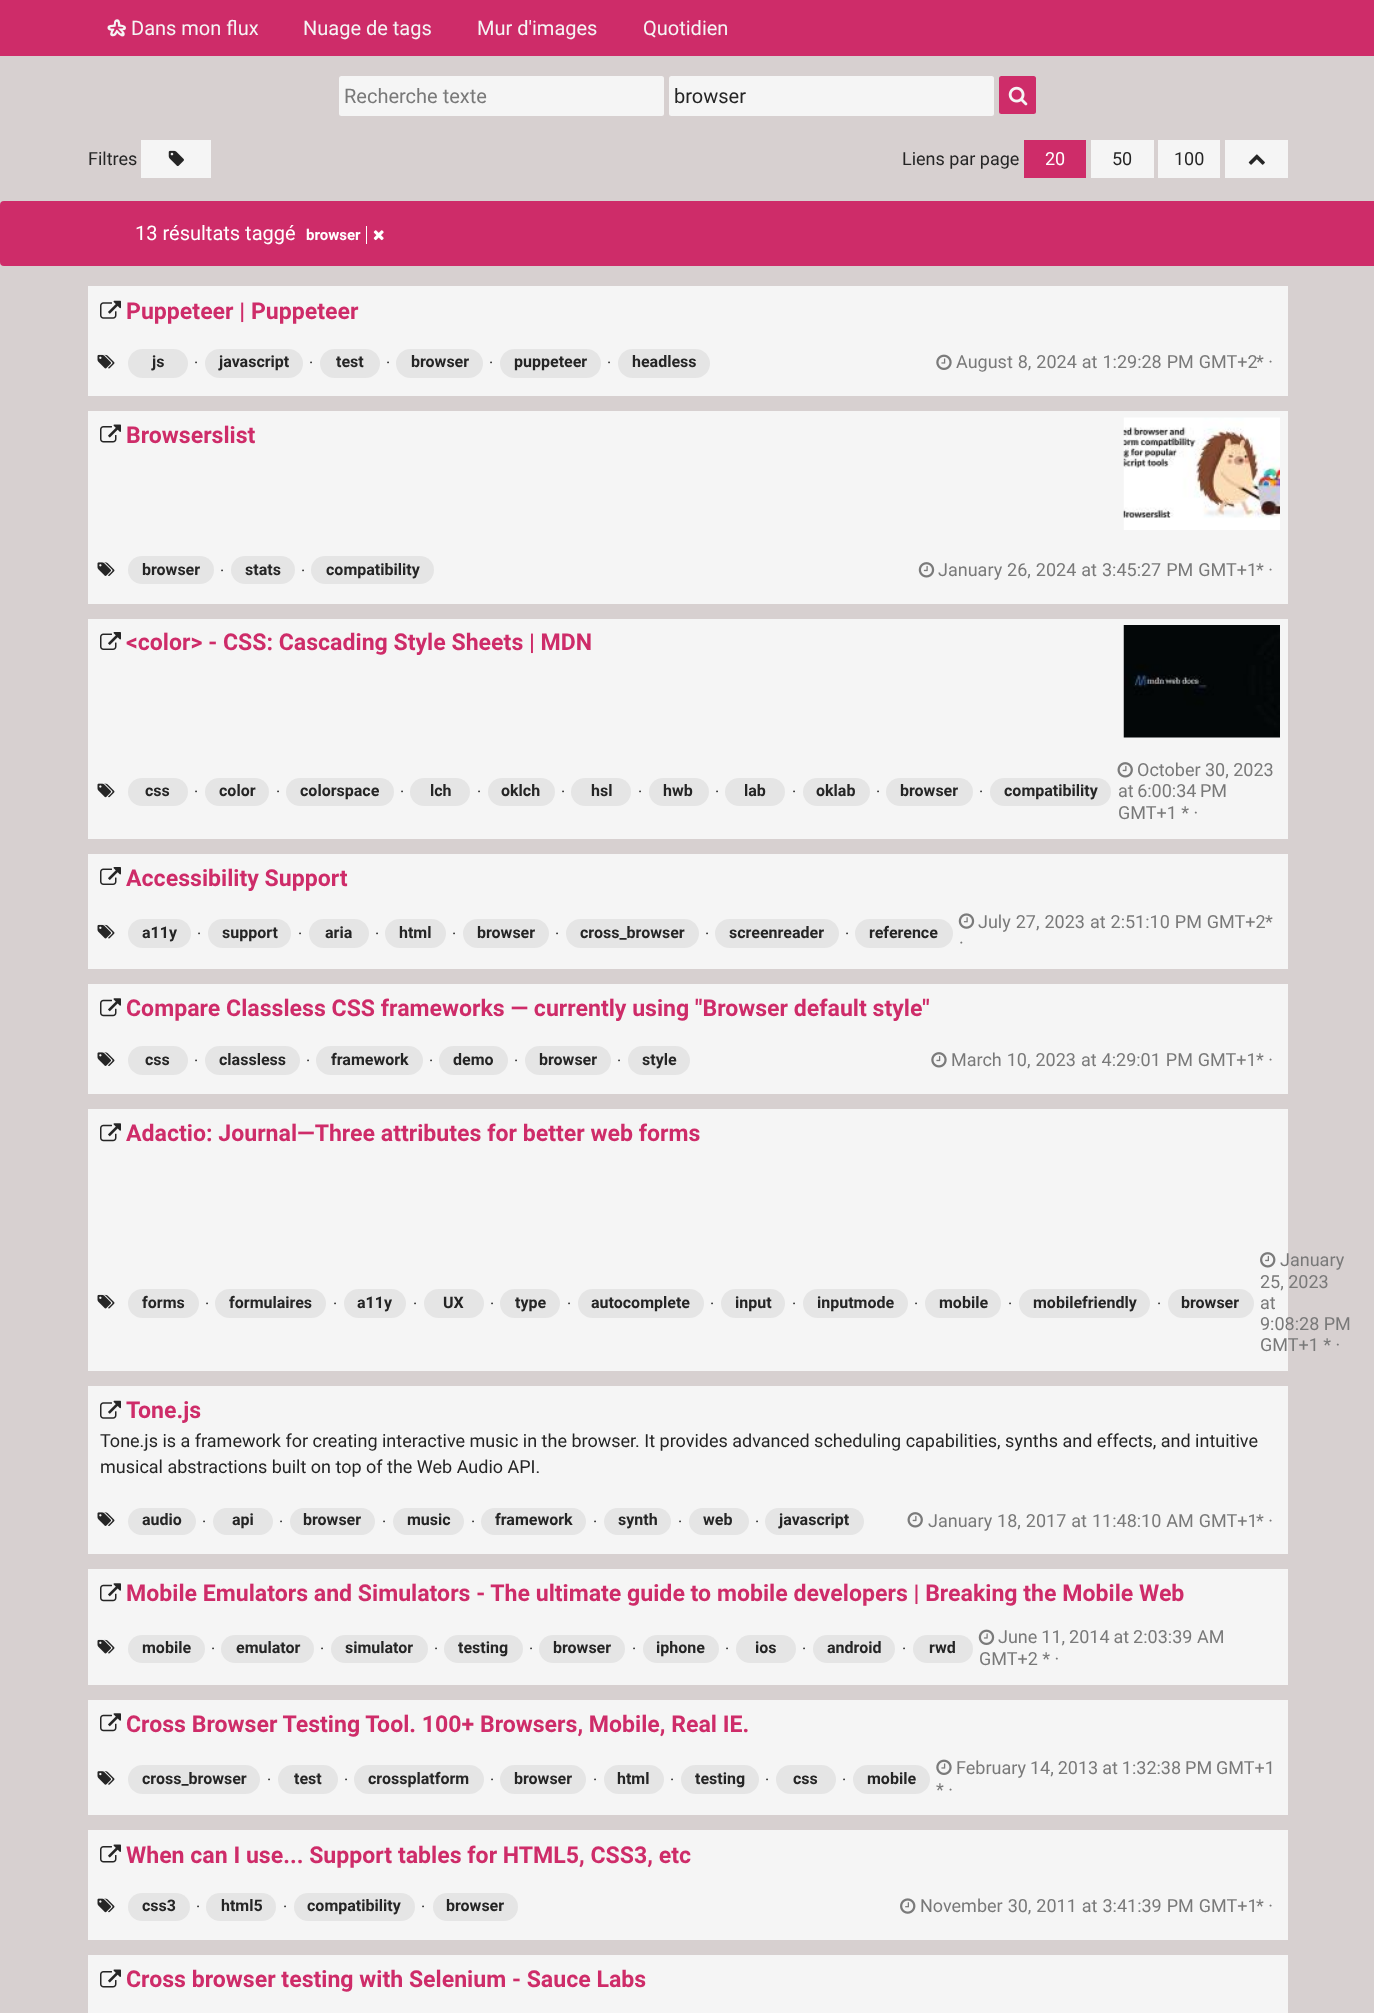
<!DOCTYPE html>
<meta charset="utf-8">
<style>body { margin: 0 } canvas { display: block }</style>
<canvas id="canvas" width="1374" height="2013"></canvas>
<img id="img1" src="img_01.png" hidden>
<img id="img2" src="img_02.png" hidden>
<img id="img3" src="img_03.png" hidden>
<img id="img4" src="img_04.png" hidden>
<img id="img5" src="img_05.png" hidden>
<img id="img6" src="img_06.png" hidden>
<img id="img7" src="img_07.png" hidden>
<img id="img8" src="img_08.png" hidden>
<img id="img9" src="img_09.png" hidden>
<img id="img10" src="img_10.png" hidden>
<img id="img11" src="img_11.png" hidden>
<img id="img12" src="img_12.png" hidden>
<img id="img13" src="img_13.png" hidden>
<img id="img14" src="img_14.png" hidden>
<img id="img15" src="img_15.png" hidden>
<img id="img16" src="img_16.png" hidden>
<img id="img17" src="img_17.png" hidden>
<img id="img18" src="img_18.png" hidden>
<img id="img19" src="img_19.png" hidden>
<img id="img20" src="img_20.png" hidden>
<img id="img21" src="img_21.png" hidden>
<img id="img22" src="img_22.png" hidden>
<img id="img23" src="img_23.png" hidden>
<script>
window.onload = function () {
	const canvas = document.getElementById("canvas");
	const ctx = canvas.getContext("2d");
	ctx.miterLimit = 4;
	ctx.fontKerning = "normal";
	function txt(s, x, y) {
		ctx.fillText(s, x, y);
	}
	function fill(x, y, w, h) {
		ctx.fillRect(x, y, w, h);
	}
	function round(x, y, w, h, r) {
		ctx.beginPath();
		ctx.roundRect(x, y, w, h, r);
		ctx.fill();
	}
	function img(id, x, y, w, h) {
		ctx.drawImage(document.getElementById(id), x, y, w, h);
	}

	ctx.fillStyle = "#D7D0D0";
	fill(0, 0, 1374, 2013);
	ctx.fillStyle = "#CE2C69";
	fill(0, 0, 1374, 56);
	img("img1", 107, 19, 19, 18);
	ctx.fillStyle = "#F5F5F5";
	round(339, 76, 325, 40, 2.5);
	round(669, 76, 325, 40, 2.5);
	ctx.fillStyle = "#CE2C69";
	round(999, 76, 37, 38, 2.5);
	img("img2", 1008, 86, 20, 20);
	ctx.fillStyle = "#F5F5F5";
	fill(141, 140, 70, 38);
	img("img3", 168, 150, 16, 17);
	ctx.fillStyle = "#CE2C69";
	fill(1024, 140, 62, 38);
	ctx.fillStyle = "#F5F5F5";
	fill(1091, 140, 63, 38);
	fill(1158, 140, 62, 38);
	fill(1225, 140, 63, 38);
	img("img4", 1248, 154, 17, 11);
	ctx.fillStyle = "#CE2C69";
	round(0, 201, 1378, 65, 4);
	ctx.fillStyle = "#FFFFFF";
	fill(366, 226, 1, 18);
	img("img5", 373, 230, 11, 11);
	ctx.fillStyle = "#F5F5F5";
	fill(88, 286, 1200, 110);
	img("img6", 100, 300, 21, 19);
	img("img7", 97, 354, 18, 15);
	ctx.fillStyle = "#E5E5E5";
	round(128, 349, 60, 29, 14.5);
	round(205, 349, 98, 29, 14.5);
	round(320, 349, 60, 29, 14.5);
	round(396, 349, 87, 29, 14.5);
	round(500, 349, 101, 29, 14.5);
	round(618, 349, 92, 29, 14.5);
	img("img8", 936, 354, 16, 16);
	ctx.fillStyle = "#F5F5F5";
	fill(88, 411, 1200, 193);
	img("img9", 100, 424, 21, 19);
	img("img10", 1123, 417, 157, 113);
	img("img11", 97, 562, 18, 14);
	ctx.fillStyle = "#E5E5E5";
	round(128, 556, 86, 28, 14);
	round(231, 556, 64, 28, 14);
	round(311, 556, 123, 28, 14);
	img("img12", 918, 562, 17, 16);
	ctx.fillStyle = "#F5F5F5";
	fill(88, 619, 1200, 220);
	img("img13", 100, 632, 21, 18);
	img("img14", 1123, 625, 157, 113);
	img("img15", 97, 783, 18, 15);
	ctx.fillStyle = "#E5E5E5";
	round(128, 778, 60, 28, 14);
	round(205, 778, 64, 28, 14);
	round(286, 778, 108, 28, 14);
	round(410, 778, 60, 28, 14);
	round(488, 778, 67, 28, 14);
	round(571, 778, 60, 28, 14);
	round(649, 778, 60, 28, 14);
	round(725, 778, 60, 28, 14);
	round(803, 778, 67, 28, 14);
	round(886, 778, 87, 28, 14);
	round(990, 778, 121, 28, 14);
	img("img16", 1117, 762, 16, 16);
	ctx.fillStyle = "#F5F5F5";
	fill(88, 854, 1200, 115);
	img("img13", 100, 867, 21, 18);
	img("img7", 97, 924, 18, 15);
	ctx.fillStyle = "#E5E5E5";
	round(128, 919, 63, 29, 14.5);
	round(208, 919, 83, 29, 14.5);
	round(309, 919, 60, 29, 14.5);
	round(385, 919, 61, 29, 14.5);
	round(463, 919, 86, 29, 14.5);
	round(566, 919, 133, 29, 14.5);
	round(715, 919, 124, 29, 14.5);
	round(855, 919, 98, 29, 14.5);
	img("img17", 958, 913, 17, 16);
	ctx.fillStyle = "#F5F5F5";
	fill(88, 984, 1200, 110);
	img("img18", 100, 998, 21, 19);
	img("img11", 97, 1052, 18, 14);
	ctx.fillStyle = "#E5E5E5";
	round(128, 1046, 60, 29, 14.5);
	round(205, 1046, 95, 29, 14.5);
	round(316, 1046, 107, 29, 14.5);
	round(439, 1046, 69, 29, 14.5);
	round(525, 1046, 86, 29, 14.5);
	round(628, 1046, 62, 29, 14.5);
	img("img19", 931, 1052, 16, 16);
	ctx.fillStyle = "#F5F5F5";
	fill(88, 1109, 1200, 262);
	img("img18", 100, 1123, 21, 19);
	img("img7", 97, 1294, 18, 15);
	ctx.fillStyle = "#E5E5E5";
	round(128, 1289, 71, 29, 14.5);
	round(215, 1289, 111, 29, 14.5);
	round(344, 1289, 62, 29, 14.5);
	round(424, 1289, 60, 29, 14.5);
	round(500, 1289, 60, 29, 14.5);
	round(578, 1289, 126, 29, 14.5);
	round(721, 1289, 64, 29, 14.5);
	round(803, 1289, 105, 29, 14.5);
	round(925, 1289, 76, 29, 14.5);
	round(1019, 1289, 131, 29, 14.5);
	round(1168, 1289, 86, 29, 14.5);
	img("img20", 1260, 1252, 16, 16);
	ctx.fillStyle = "#F5F5F5";
	fill(88, 1386, 1200, 168);
	img("img6", 100, 1400, 21, 19);
	img("img11", 97, 1512, 18, 14);
	ctx.fillStyle = "#E5E5E5";
	round(128, 1508, 68, 27, 13.5);
	round(213, 1508, 60, 27, 13.5);
	round(290, 1508, 85, 27, 13.5);
	round(393, 1508, 71, 27, 13.5);
	round(481, 1508, 105, 27, 13.5);
	round(604, 1508, 67, 27, 13.5);
	round(689, 1508, 60, 27, 13.5);
	round(765, 1508, 99, 27, 13.5);
	img("img16", 907, 1512, 16, 16);
	ctx.fillStyle = "#F5F5F5";
	fill(88, 1569, 1200, 116);
	img("img18", 100, 1583, 21, 19);
	img("img7", 97, 1639, 18, 15);
	ctx.fillStyle = "#E5E5E5";
	round(128, 1635, 77, 28, 14);
	round(221, 1635, 93, 28, 14);
	round(331, 1635, 97, 28, 14);
	round(444, 1635, 79, 28, 14);
	round(539, 1635, 86, 28, 14);
	round(643, 1635, 76, 28, 14);
	round(736, 1635, 60, 28, 14);
	round(813, 1635, 82, 28, 14);
	round(913, 1635, 60, 28, 14);
	img("img21", 978, 1629, 17, 16);
	ctx.fillStyle = "#F5F5F5";
	fill(88, 1700, 1200, 115);
	img("img18", 100, 1713, 21, 19);
	img("img22", 97, 1771, 18, 14);
	ctx.fillStyle = "#E5E5E5";
	round(128, 1765, 132, 29, 14.5);
	round(278, 1765, 60, 29, 14.5);
	round(354, 1765, 130, 29, 14.5);
	round(500, 1765, 86, 29, 14.5);
	round(604, 1765, 60, 29, 14.5);
	round(681, 1765, 78, 29, 14.5);
	round(776, 1765, 60, 29, 14.5);
	round(853, 1765, 77, 29, 14.5);
	img("img8", 936, 1759, 16, 16);
	ctx.fillStyle = "#F5F5F5";
	fill(88, 1830, 1200, 110);
	img("img9", 100, 1844, 21, 19);
	img("img15", 97, 1898, 18, 15);
	ctx.fillStyle = "#E5E5E5";
	round(128, 1893, 62, 28, 14);
	round(206, 1893, 70, 28, 14);
	round(294, 1893, 121, 28, 14);
	round(433, 1893, 85, 28, 14);
	img("img23", 900, 1898, 16, 16);
	ctx.fillStyle = "#F5F5F5";
	fill(88, 1955, 1200, 58);
	img("img9", 100, 1969, 21, 19);
	ctx.font = "20px Roboto";
	txt("Dans mon flux", 131, 35);
	txt("Nuage de tags", 303, 35);
	txt("Mur d'images", 477, 35);
	txt("Quotidien", 643, 35);
	ctx.fillStyle = "#797979";
	txt("Recherche texte", 344, 103);
	ctx.fillStyle = "#252525";
	txt("browser", 674, 103);
	ctx.font = "18px Roboto";
	txt("Filtres", 88, 165);
	txt("Liens par page", 902, 165);
	ctx.fillStyle = "#FFFFFF";
	txt("20", 1045, 165);
	ctx.fillStyle = "#252525";
	txt("50", 1112, 165);
	txt("100", 1174, 165);
	ctx.font = "20px Roboto";
	ctx.fillStyle = "#FFFFFF";
	txt("13 résultats taggé", 135, 240);
	ctx.font = "bold 15px Roboto";
	txt("browser", 306, 240);
	ctx.font = "bold 23.1px Roboto";
	ctx.fillStyle = "#CE2C69";
	txt("Puppeteer | Puppeteer", 126, 319);
	ctx.font = "bold 16px Roboto";
	ctx.fillStyle = "#252525";
	txt("js", 152, 367);
	ctx.font = "16px Roboto";
	txt("·", 194, 368);
	ctx.font = "bold 16px Roboto";
	txt("javascript", 219, 367);
	ctx.font = "16px Roboto";
	txt("·", 309, 368);
	ctx.font = "bold 16px Roboto";
	txt("test", 336, 367);
	ctx.font = "16px Roboto";
	txt("·", 386, 368);
	ctx.font = "bold 16px Roboto";
	txt("browser", 411, 367);
	ctx.font = "16px Roboto";
	txt("·", 489, 368);
	ctx.font = "bold 16px Roboto";
	txt("puppeteer", 514, 367);
	ctx.font = "16px Roboto";
	txt("·", 607, 368);
	ctx.font = "bold 16px Roboto";
	txt("headless", 632, 367);
	ctx.wordSpacing = "0.5px";
	ctx.font = "18px Roboto";
	ctx.fillStyle = "#797979";
	txt("August 8, 2024 at 1:29:28 PM GMT+2", 956, 368);
	ctx.wordSpacing = "0px";
	txt("* ·", 1256, 368);
	ctx.font = "bold 23.1px Roboto";
	ctx.fillStyle = "#CE2C69";
	txt("Browserslist", 126, 443);
	ctx.font = "bold 16px Roboto";
	ctx.fillStyle = "#252525";
	txt("browser", 142, 575);
	ctx.font = "16px Roboto";
	txt("·", 220, 576);
	ctx.font = "bold 16px Roboto";
	txt("stats", 245, 575);
	ctx.font = "16px Roboto";
	txt("·", 301, 576);
	ctx.font = "bold 16px Roboto";
	txt("compatibility", 326, 575);
	ctx.wordSpacing = "0.5px";
	ctx.font = "18px Roboto";
	ctx.fillStyle = "#797979";
	txt("January 26, 2024 at 3:45:27 PM GMT+1", 938, 576);
	ctx.wordSpacing = "0px";
	txt("* ·", 1256, 576);
	ctx.font = "bold 23.1px Roboto";
	ctx.fillStyle = "#CE2C69";
	txt("<color> - CSS: Cascading Style Sheets | MDN", 126, 650);
	ctx.font = "bold 16px Roboto";
	ctx.fillStyle = "#252525";
	txt("css", 145, 796);
	ctx.font = "16px Roboto";
	txt("·", 194, 797);
	ctx.font = "bold 16px Roboto";
	txt("color", 219, 796);
	ctx.font = "16px Roboto";
	txt("·", 276, 797);
	ctx.font = "bold 16px Roboto";
	txt("colorspace", 300, 796);
	ctx.font = "16px Roboto";
	txt("·", 400, 797);
	ctx.font = "bold 16px Roboto";
	txt("lch", 430, 796);
	ctx.font = "16px Roboto";
	txt("·", 477, 797);
	ctx.font = "bold 16px Roboto";
	txt("oklch", 501, 796);
	ctx.font = "16px Roboto";
	txt("·", 561, 797);
	ctx.font = "bold 16px Roboto";
	txt("hsl", 591, 796);
	ctx.font = "16px Roboto";
	txt("·", 638, 797);
	ctx.font = "bold 16px Roboto";
	txt("hwb", 663, 796);
	ctx.font = "16px Roboto";
	txt("·", 715, 797);
	ctx.font = "bold 16px Roboto";
	txt("lab", 744, 796);
	ctx.font = "16px Roboto";
	txt("·", 792, 797);
	ctx.font = "bold 16px Roboto";
	txt("oklab", 816, 796);
	ctx.font = "16px Roboto";
	txt("·", 876, 797);
	ctx.font = "bold 16px Roboto";
	txt("browser", 900, 796);
	ctx.font = "16px Roboto";
	txt("·", 979, 797);
	ctx.font = "bold 16px Roboto";
	txt("compatibility", 1004, 796);
	ctx.font = "18px Roboto";
	ctx.fillStyle = "#797979";
	txt("October 30, 2023", 1137, 776);
	ctx.wordSpacing = "-1px";
	txt("at 6:00:34", 1118, 797);
	ctx.wordSpacing = "0px";
	txt("PM", 1200, 797);
	txt("GMT+1 * ·", 1118, 819);
	ctx.font = "bold 23.1px Roboto";
	ctx.fillStyle = "#CE2C69";
	txt("Accessibility Support", 126, 886);
	ctx.font = "bold 16px Roboto";
	ctx.fillStyle = "#252525";
	txt("a11y", 142, 938);
	ctx.font = "16px Roboto";
	txt("·", 197, 939);
	ctx.font = "bold 16px Roboto";
	txt("support", 222, 938);
	ctx.font = "16px Roboto";
	txt("·", 298, 939);
	ctx.font = "bold 16px Roboto";
	txt("aria", 325, 938);
	ctx.font = "16px Roboto";
	txt("·", 375, 939);
	ctx.font = "bold 16px Roboto";
	txt("html", 399, 938);
	ctx.font = "16px Roboto";
	txt("·", 452, 939);
	ctx.font = "bold 16px Roboto";
	txt("browser", 477, 938);
	ctx.font = "16px Roboto";
	txt("·", 555, 939);
	ctx.font = "bold 16px Roboto";
	txt("cross_browser", 580, 938);
	ctx.font = "16px Roboto";
	txt("·", 705, 939);
	ctx.font = "bold 16px Roboto";
	txt("screenreader", 729, 938);
	ctx.font = "16px Roboto";
	txt("·", 845, 939);
	ctx.font = "bold 16px Roboto";
	txt("reference", 869, 938);
	ctx.wordSpacing = "0.5px";
	ctx.font = "18px Roboto";
	ctx.fillStyle = "#797979";
	txt("July 27, 2023 at 2:51:10 PM GMT+2", 978, 928);
	ctx.wordSpacing = "0px";
	txt("*", 1265, 928);
	txt("·", 959, 949);
	ctx.font = "bold 23.1px Roboto";
	ctx.fillStyle = "#CE2C69";
	txt("Compare Classless CSS frameworks — currently using \"Browser default style\"", 126, 1016);
	ctx.font = "bold 16px Roboto";
	ctx.fillStyle = "#252525";
	txt("css", 145, 1065);
	ctx.font = "16px Roboto";
	txt("·", 194, 1066);
	ctx.font = "bold 16px Roboto";
	txt("classless", 219, 1065);
	ctx.font = "16px Roboto";
	txt("·", 306, 1066);
	ctx.font = "bold 16px Roboto";
	txt("framework", 331, 1065);
	ctx.font = "16px Roboto";
	txt("·", 429, 1066);
	ctx.font = "bold 16px Roboto";
	txt("demo", 453, 1065);
	ctx.font = "16px Roboto";
	txt("·", 514, 1066);
	ctx.font = "bold 16px Roboto";
	txt("browser", 539, 1065);
	ctx.font = "16px Roboto";
	txt("·", 617, 1066);
	ctx.font = "bold 16px Roboto";
	txt("style", 642, 1065);
	ctx.wordSpacing = "0.5px";
	ctx.font = "18px Roboto";
	ctx.fillStyle = "#797979";
	txt("March 10, 2023 at 4:29:01 PM GMT+1", 951, 1066);
	ctx.wordSpacing = "0px";
	txt("* ·", 1256, 1066);
	ctx.font = "bold 23.1px Roboto";
	ctx.fillStyle = "#CE2C69";
	txt("Adactio: Journal—Three attributes for better web forms", 126, 1141);
	ctx.font = "bold 16px Roboto";
	ctx.fillStyle = "#252525";
	txt("forms", 142, 1308);
	ctx.font = "16px Roboto";
	txt("·", 205, 1309);
	ctx.font = "bold 16px Roboto";
	txt("formulaires", 229, 1308);
	ctx.font = "16px Roboto";
	txt("·", 333, 1309);
	ctx.font = "bold 16px Roboto";
	txt("a11y", 357, 1308);
	ctx.font = "16px Roboto";
	txt("·", 413, 1309);
	ctx.font = "bold 16px Roboto";
	txt("UX", 443, 1308);
	ctx.font = "16px Roboto";
	txt("·", 490, 1309);
	ctx.font = "bold 16px Roboto";
	txt("type", 515, 1308);
	ctx.font = "16px Roboto";
	txt("·", 567, 1309);
	ctx.font = "bold 16px Roboto";
	txt("autocomplete", 591, 1308);
	ctx.font = "16px Roboto";
	txt("·", 710, 1309);
	ctx.font = "bold 16px Roboto";
	txt("input", 735, 1308);
	ctx.font = "16px Roboto";
	txt("·", 792, 1309);
	ctx.font = "bold 16px Roboto";
	txt("inputmode", 817, 1308);
	ctx.font = "16px Roboto";
	txt("·", 914, 1309);
	ctx.font = "bold 16px Roboto";
	txt("mobile", 939, 1308);
	ctx.font = "16px Roboto";
	txt("·", 1008, 1309);
	ctx.font = "bold 16px Roboto";
	txt("mobilefriendly", 1033, 1308);
	ctx.font = "16px Roboto";
	txt("·", 1157, 1309);
	ctx.font = "bold 16px Roboto";
	txt("browser", 1181, 1308);
	ctx.font = "18px Roboto";
	ctx.fillStyle = "#797979";
	txt("January", 1280, 1266);
	txt("25, 2023", 1260, 1288);
	txt("at", 1260, 1309);
	txt("9:08:28 PM", 1260, 1330);
	txt("GMT+1 * ·", 1260, 1351);
	ctx.font = "bold 23.1px Roboto";
	ctx.fillStyle = "#CE2C69";
	txt("Tone.js", 126, 1418);
	ctx.font = "18px Roboto";
	ctx.fillStyle = "#252525";
	txt("Tone.js is a framework for creating interactive music in the browser. It provides advanced scheduling capabilities, synths and effects, and intuitive", 100, 1447);
	txt("musical abstractions built on top of the Web Audio API.", 100, 1473);
	ctx.font = "bold 16px Roboto";
	txt("audio", 142, 1525);
	ctx.font = "16px Roboto";
	txt("·", 202, 1527);
	ctx.font = "bold 16px Roboto";
	txt("api", 232, 1525);
	ctx.font = "16px Roboto";
	txt("·", 279, 1527);
	ctx.font = "bold 16px Roboto";
	txt("browser", 303, 1525);
	ctx.font = "16px Roboto";
	txt("·", 382, 1527);
	ctx.font = "bold 16px Roboto";
	txt("music", 407, 1525);
	ctx.font = "16px Roboto";
	txt("·", 471, 1527);
	ctx.font = "bold 16px Roboto";
	txt("framework", 495, 1525);
	ctx.font = "16px Roboto";
	txt("·", 593, 1527);
	ctx.font = "bold 16px Roboto";
	txt("synth", 618, 1525);
	ctx.font = "16px Roboto";
	txt("·", 678, 1527);
	ctx.font = "bold 16px Roboto";
	txt("web", 703, 1525);
	ctx.font = "16px Roboto";
	txt("·", 755, 1527);
	ctx.font = "bold 16px Roboto";
	txt("javascript", 779, 1525);
	ctx.wordSpacing = "0.5px";
	ctx.font = "18px Roboto";
	ctx.fillStyle = "#797979";
	txt("January 18, 2017 at 11:48:10 AM GMT+1", 928, 1527);
	ctx.wordSpacing = "0px";
	txt("* ·", 1256, 1527);
	ctx.font = "bold 23.1px Roboto";
	ctx.fillStyle = "#CE2C69";
	txt("Mobile Emulators and Simulators - The ultimate guide to mobile developers | Breaking the Mobile Web", 126, 1601);
	ctx.font = "bold 16px Roboto";
	ctx.fillStyle = "#252525";
	txt("mobile", 142, 1653);
	ctx.font = "16px Roboto";
	txt("·", 211, 1654);
	ctx.font = "bold 16px Roboto";
	txt("emulator", 236, 1653);
	ctx.font = "16px Roboto";
	txt("·", 320, 1654);
	ctx.font = "bold 16px Roboto";
	txt("simulator", 345, 1653);
	ctx.font = "16px Roboto";
	txt("·", 434, 1654);
	ctx.font = "bold 16px Roboto";
	txt("testing", 458, 1653);
	ctx.font = "16px Roboto";
	txt("·", 529, 1654);
	ctx.font = "bold 16px Roboto";
	txt("browser", 553, 1653);
	ctx.font = "16px Roboto";
	txt("·", 632, 1654);
	ctx.font = "bold 16px Roboto";
	txt("iphone", 656, 1653);
	ctx.font = "16px Roboto";
	txt("·", 725, 1654);
	ctx.font = "bold 16px Roboto";
	txt("ios", 755, 1653);
	ctx.font = "16px Roboto";
	txt("·", 802, 1654);
	ctx.font = "bold 16px Roboto";
	txt("android", 827, 1653);
	ctx.font = "16px Roboto";
	txt("·", 902, 1654);
	ctx.font = "bold 16px Roboto";
	txt("rwd", 929, 1653);
	ctx.wordSpacing = "-0.5px";
	ctx.font = "18px Roboto";
	ctx.fillStyle = "#797979";
	txt("June 11, 2014 at 2:03:39", 998, 1643);
	ctx.wordSpacing = "0px";
	txt("AM", 1197, 1643);
	txt("GMT+2 * ·", 979, 1665);
	ctx.font = "bold 23.1px Roboto";
	ctx.fillStyle = "#CE2C69";
	txt("Cross Browser Testing Tool. 100+ Browsers, Mobile, Real IE.", 126, 1732);
	ctx.font = "bold 16px Roboto";
	ctx.fillStyle = "#252525";
	txt("cross_browser", 142, 1784);
	ctx.font = "16px Roboto";
	txt("·", 267, 1785);
	ctx.font = "bold 16px Roboto";
	txt("test", 294, 1784);
	ctx.font = "16px Roboto";
	txt("·", 344, 1785);
	ctx.font = "bold 16px Roboto";
	txt("crossplatform", 368, 1784);
	ctx.font = "16px Roboto";
	txt("·", 490, 1785);
	ctx.font = "bold 16px Roboto";
	txt("browser", 514, 1784);
	ctx.font = "16px Roboto";
	txt("·", 593, 1785);
	ctx.font = "bold 16px Roboto";
	txt("html", 617, 1784);
	ctx.font = "16px Roboto";
	txt("·", 670, 1785);
	ctx.font = "bold 16px Roboto";
	txt("testing", 695, 1784);
	ctx.font = "16px Roboto";
	txt("·", 765, 1785);
	ctx.font = "bold 16px Roboto";
	txt("css", 793, 1784);
	ctx.font = "16px Roboto";
	txt("·", 842, 1785);
	ctx.font = "bold 16px Roboto";
	txt("mobile", 867, 1784);
	ctx.wordSpacing = "-0.5px";
	ctx.font = "18px Roboto";
	ctx.fillStyle = "#797979";
	txt("February 14, 2013 at 1:32:38 PM GMT+1", 956, 1774);
	ctx.wordSpacing = "0px";
	txt("* ·", 936, 1796);
	ctx.font = "bold 23.1px Roboto";
	ctx.fillStyle = "#CE2C69";
	txt("When can I use... Support tables for HTML5, CSS3, etc", 126, 1863);
	ctx.font = "bold 16px Roboto";
	ctx.fillStyle = "#252525";
	txt("css3", 142, 1911);
	ctx.font = "16px Roboto";
	txt("·", 196, 1912);
	ctx.font = "bold 16px Roboto";
	txt("html5", 221, 1911);
	ctx.font = "16px Roboto";
	txt("·", 283, 1912);
	ctx.font = "bold 16px Roboto";
	txt("compatibility", 307, 1911);
	ctx.font = "16px Roboto";
	txt("·", 421, 1912);
	ctx.font = "bold 16px Roboto";
	txt("browser", 446, 1911);
	ctx.wordSpacing = "0.5px";
	ctx.font = "18px Roboto";
	ctx.fillStyle = "#797979";
	txt("November 30, 2011 at 3:41:39 PM GMT+1", 920, 1912);
	ctx.wordSpacing = "0px";
	txt("* ·", 1256, 1912);
	ctx.font = "bold 23.1px Roboto";
	ctx.fillStyle = "#CE2C69";
	txt("Cross browser testing with Selenium - Sauce Labs", 126, 1987);
};
</script>
